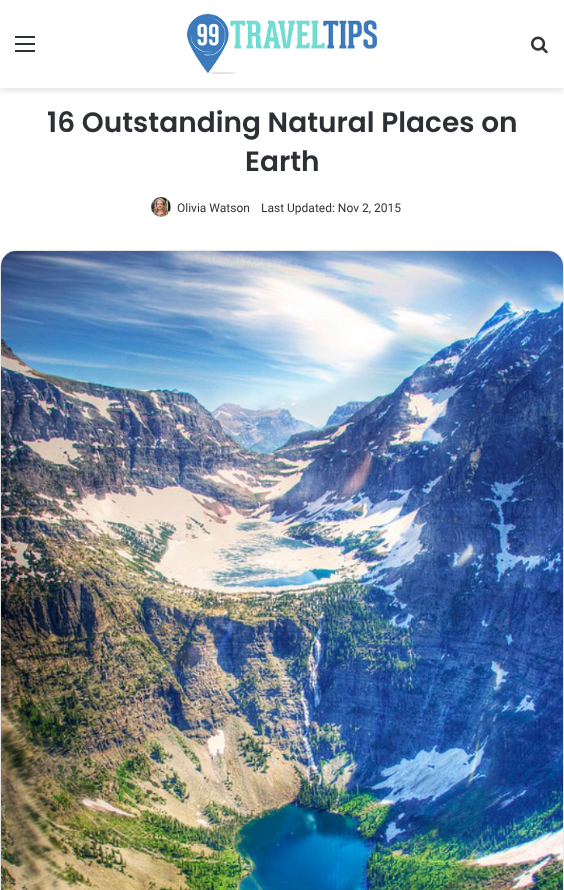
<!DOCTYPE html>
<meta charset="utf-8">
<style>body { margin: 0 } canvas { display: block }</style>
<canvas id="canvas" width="564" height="890"></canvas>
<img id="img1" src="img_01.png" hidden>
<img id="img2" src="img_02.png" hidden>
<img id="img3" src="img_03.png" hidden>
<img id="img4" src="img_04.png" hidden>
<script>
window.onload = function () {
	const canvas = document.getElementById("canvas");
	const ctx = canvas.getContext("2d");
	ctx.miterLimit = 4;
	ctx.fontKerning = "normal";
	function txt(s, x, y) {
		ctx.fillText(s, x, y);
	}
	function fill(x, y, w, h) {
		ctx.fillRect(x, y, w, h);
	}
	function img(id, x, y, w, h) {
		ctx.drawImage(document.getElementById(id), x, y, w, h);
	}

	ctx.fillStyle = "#FFFFFF";
	fill(0, 0, 564, 890);
	ctx.save();
	ctx.beginPath();
	ctx.rect(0, 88, 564, 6);
	ctx.clip();
	ctx.fillStyle = "rgba(0, 0, 0, 0.1)";
	ctx.filter = "blur(3.5px)";
	ctx.beginPath();
	ctx.rect(0, 3, 564, 88);
	ctx.fill();
	ctx.filter = "none";
	ctx.restore();
	ctx.fillStyle = "#2C2F34";
	fill(15, 43, 20, 2);
	fill(15, 36, 20, 2);
	fill(15, 50, 20, 2);
	img("img1", 187, 14, 190, 60);
	img("img2", 531, 36, 17, 18);
	img("img3", 151, 197, 20, 20);
	ctx.beginPath();
	ctx.roundRect(0.5, 250.5, 563, 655, 14.5);
	ctx.strokeStyle = "#E6E6E6";
	ctx.stroke();
	img("img4", 1, 251, 562, 639);
	ctx.font = "600 28px Poppins";
	txt("16 Outstanding Natural Places on", 47, 132);
	txt("Earth", 245, 171);
	ctx.font = "12px Roboto";
	ctx.fillStyle = "#333333";
	txt("Olivia Watson", 177, 212);
	txt("Last Updated: Nov 2, 2015", 261, 212);
};
</script>
